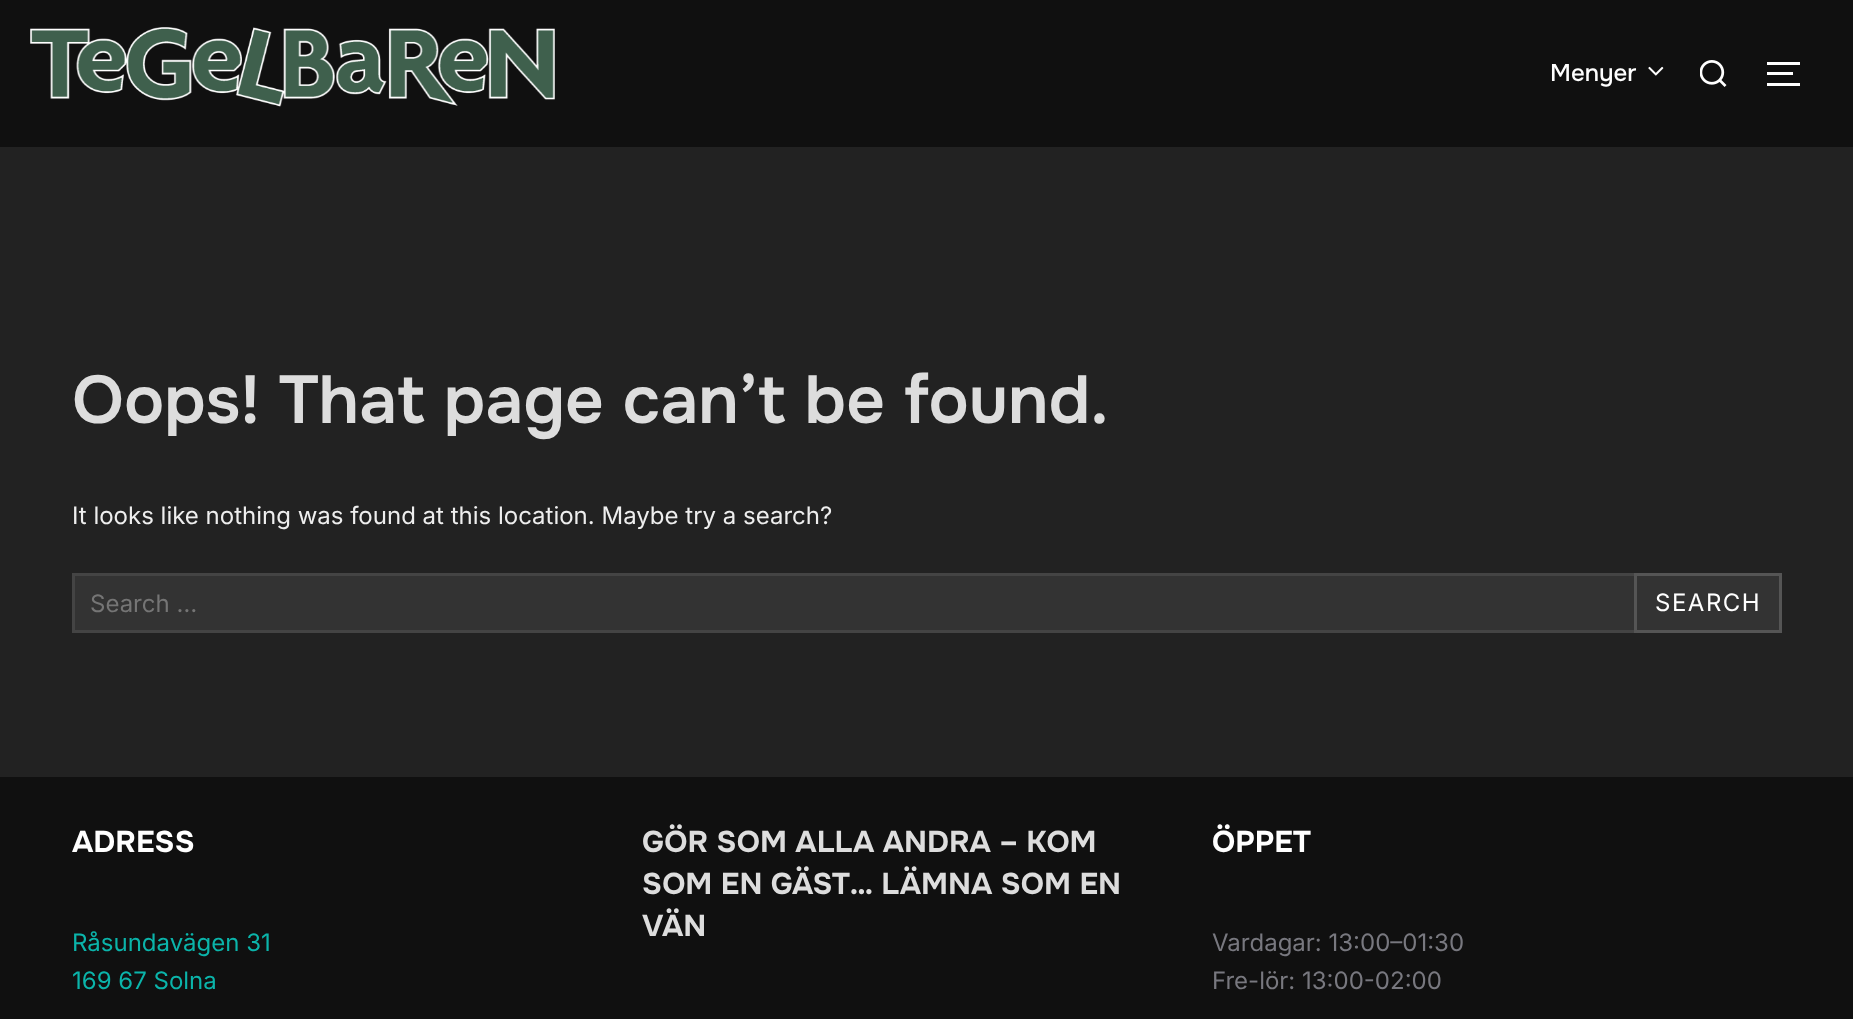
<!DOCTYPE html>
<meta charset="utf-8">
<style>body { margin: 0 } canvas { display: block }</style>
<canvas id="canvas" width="1853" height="1019"></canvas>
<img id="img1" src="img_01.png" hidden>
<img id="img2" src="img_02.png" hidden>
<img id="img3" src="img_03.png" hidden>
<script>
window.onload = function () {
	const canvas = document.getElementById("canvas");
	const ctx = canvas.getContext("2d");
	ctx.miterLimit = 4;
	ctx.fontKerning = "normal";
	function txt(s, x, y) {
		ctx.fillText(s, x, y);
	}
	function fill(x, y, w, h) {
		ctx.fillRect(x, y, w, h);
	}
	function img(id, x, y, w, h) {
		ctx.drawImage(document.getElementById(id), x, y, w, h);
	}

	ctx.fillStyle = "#222222";
	fill(0, 0, 1853, 1019);
	ctx.fillStyle = "#101010";
	fill(0, 0, 1853, 147);
	img("img1", 30, 27, 525, 80);
	img("img2", 1648, 66, 16, 10);
	img("img3", 1700, 60, 27, 27);
	ctx.fillStyle = "#FFFFFF";
	fill(1767, 62, 33, 3);
	fill(1767, 72, 26, 3);
	fill(1767, 83, 33, 3);
	ctx.fillStyle = "#333333";
	ctx.beginPath();
	ctx.rect(73.5, 574.5, 1707, 57);
	ctx.fill();
	ctx.strokeStyle = "#444444";
	ctx.lineWidth = 3;
	ctx.stroke();
	ctx.strokeStyle = "#555555";
	ctx.strokeRect(1635.5, 574.5, 145, 57);
	ctx.fillStyle = "#101010";
	fill(0, 777, 1853, 242);
	ctx.font = "500 24px Onest";
	ctx.fillStyle = "#FFFFFF";
	txt("Menyer", 1550, 81);
	ctx.font = "600 67.5px Onest";
	ctx.fillStyle = "#DDDDDD";
	txt("Oops! That page can’t be found.", 72, 423);
	ctx.font = "24px Inter";
	ctx.fillStyle = "#EEEEEE";
	txt("It looks like nothing was found at this location. Maybe try a search?", 72, 524);
	ctx.fillStyle = "#757575";
	txt("Search …", 90, 612);
	ctx.letterSpacing = "1.5px";
	ctx.fillStyle = "#FFFFFF";
	txt("SEARCH", 1655, 611);
	ctx.letterSpacing = "0px";
	ctx.font = "bold 30px Onest";
	txt("ADRESS", 72, 852);
	ctx.font = "24px Inter";
	ctx.fillStyle = "#0BB4AA";
	txt("Råsundavägen 31", 72, 951);
	txt("169 67 Solna", 72, 989);
	ctx.font = "bold 30px Onest";
	ctx.fillStyle = "#DDDDDD";
	txt("GÖR SOM ALLA ANDRA – KOM", 642, 852);
	txt("SOM EN GÄST… LÄMNA SOM EN", 642, 894);
	txt("VÄN", 642, 936);
	ctx.fillStyle = "#FFFFFF";
	txt("ÖPPET", 1212, 852);
	ctx.font = "24px Inter";
	ctx.fillStyle = "#78787F";
	txt("Vardagar: 13:00–01:30", 1212, 951);
	txt("Fre-lör: 13:00-02:00", 1212, 989);
};
</script>
